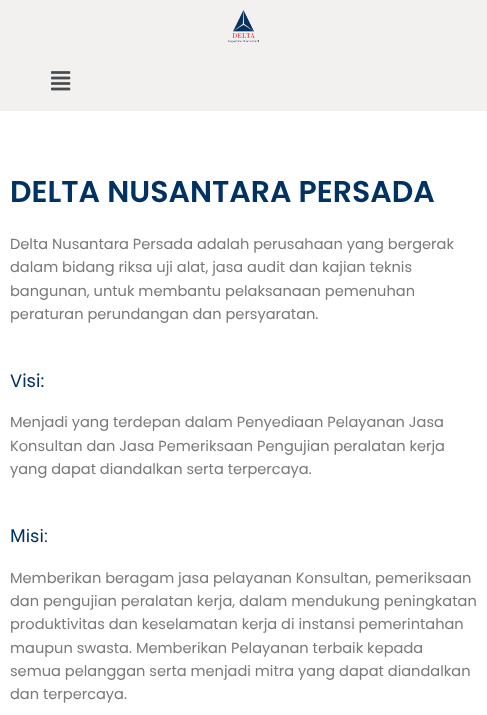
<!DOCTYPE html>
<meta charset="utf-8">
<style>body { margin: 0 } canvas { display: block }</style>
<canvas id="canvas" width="487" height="715"></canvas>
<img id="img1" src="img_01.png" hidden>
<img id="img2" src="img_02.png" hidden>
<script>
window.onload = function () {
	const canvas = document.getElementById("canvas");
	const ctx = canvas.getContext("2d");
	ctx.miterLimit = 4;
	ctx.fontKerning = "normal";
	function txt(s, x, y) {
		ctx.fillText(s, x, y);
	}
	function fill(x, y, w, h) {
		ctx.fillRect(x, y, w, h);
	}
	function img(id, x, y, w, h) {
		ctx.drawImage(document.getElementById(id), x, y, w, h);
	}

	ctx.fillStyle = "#FFFFFF";
	fill(0, 0, 487, 715);
	ctx.fillStyle = "#F3F0F0";
	fill(0, 0, 487, 111);
	img("img1", 228, 10, 31, 33);
	img("img2", 51, 71, 20, 20);
	ctx.font = "600 30px Poppins";
	ctx.fillStyle = "#003263";
	txt("DELTA NUSANTARA PERSADA", 10, 202);
	ctx.font = "14.6px Poppins";
	ctx.fillStyle = "#7A7A7A";
	txt("Delta Nusantara Persada adalah perusahaan yang bergerak", 10, 249);
	txt("dalam bidang riksa uji alat, jasa audit dan kajian teknis", 10, 272);
	txt("bangunan, untuk membantu pelaksanaan pemenuhan", 10, 296);
	txt("peraturan perundangan dan persyaratan.", 10, 319);
	ctx.font = "18px Poppins";
	ctx.fillStyle = "#003263";
	txt("Visi:", 10, 387);
	ctx.font = "14.6px Poppins";
	ctx.fillStyle = "#7A7A7A";
	txt("Menjadi yang terdepan dalam Penyediaan Pelayanan Jasa", 10, 427);
	txt("Konsultan dan Jasa Pemeriksaan Pengujian peralatan kerja", 10, 451);
	txt("yang dapat diandalkan serta terpercaya.", 10, 474);
	ctx.font = "18px Roboto";
	ctx.fillStyle = "#003263";
	txt("Misi:", 10, 542);
	ctx.font = "14.6px Poppins";
	ctx.fillStyle = "#7A7A7A";
	txt("Memberikan beragam jasa pelayanan Konsultan, pemeriksaan", 10, 583);
	txt("dan pengujian peralatan kerja, dalam mendukung peningkatan", 10, 606);
	txt("produktivitas dan keselamatan kerja di instansi pemerintahan", 10, 629);
	txt("maupun swasta. Memberikan Pelayanan terbaik kepada", 10, 653);
	txt("semua pelanggan serta menjadi mitra yang dapat diandalkan", 10, 676);
	txt("dan terpercaya.", 10, 699);
};
</script>
